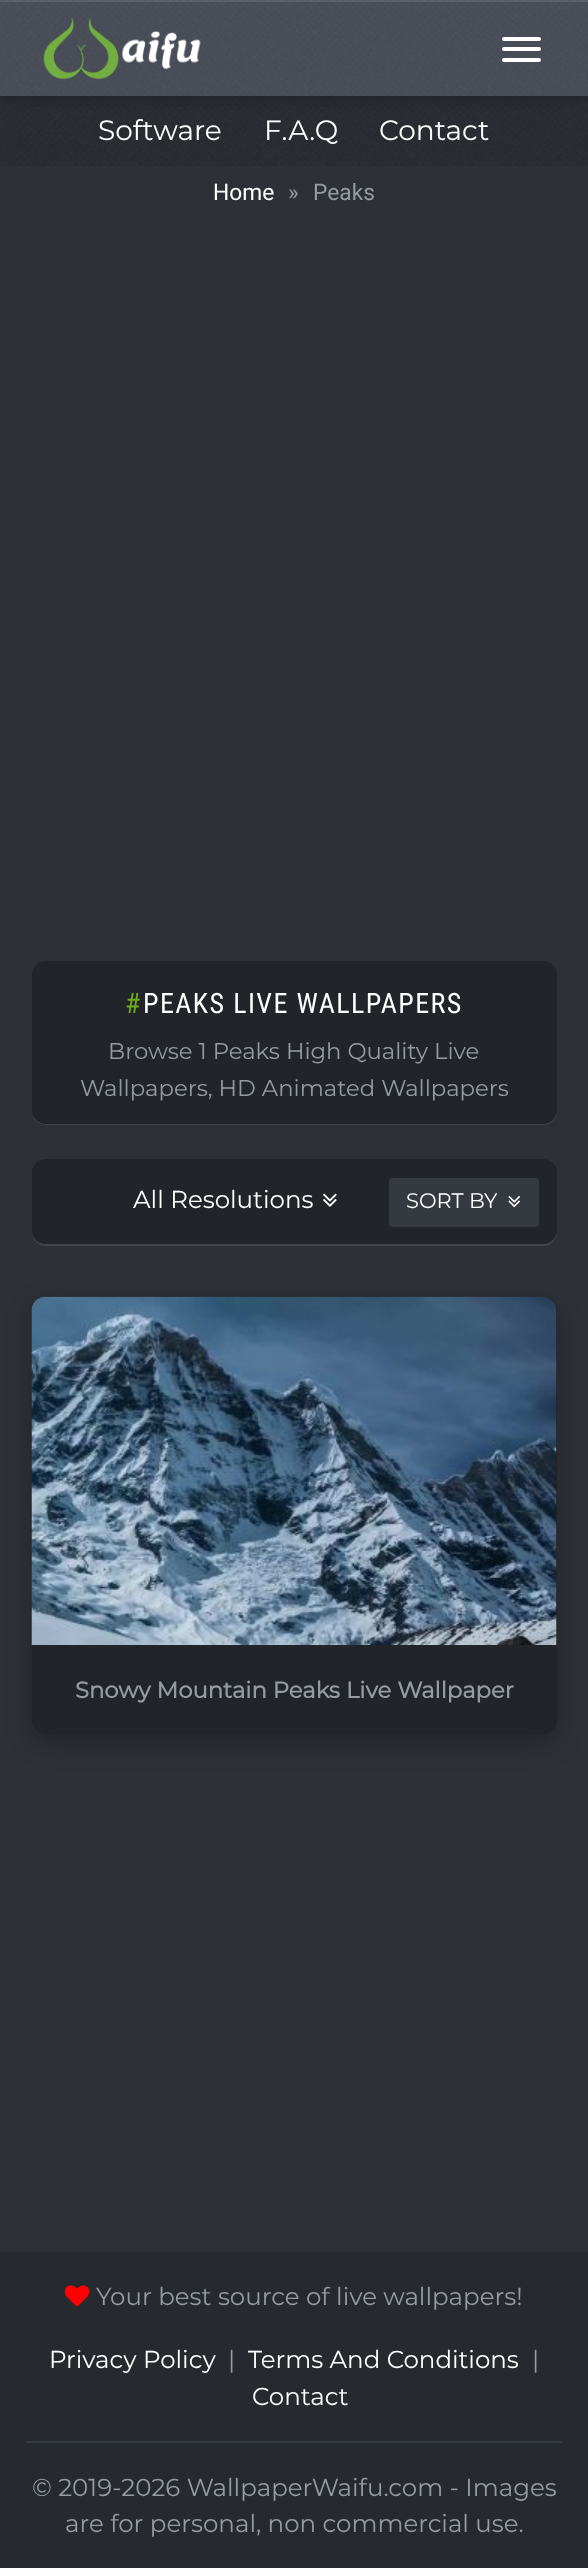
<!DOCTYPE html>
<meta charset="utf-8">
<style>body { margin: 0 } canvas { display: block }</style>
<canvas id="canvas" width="588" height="2568"></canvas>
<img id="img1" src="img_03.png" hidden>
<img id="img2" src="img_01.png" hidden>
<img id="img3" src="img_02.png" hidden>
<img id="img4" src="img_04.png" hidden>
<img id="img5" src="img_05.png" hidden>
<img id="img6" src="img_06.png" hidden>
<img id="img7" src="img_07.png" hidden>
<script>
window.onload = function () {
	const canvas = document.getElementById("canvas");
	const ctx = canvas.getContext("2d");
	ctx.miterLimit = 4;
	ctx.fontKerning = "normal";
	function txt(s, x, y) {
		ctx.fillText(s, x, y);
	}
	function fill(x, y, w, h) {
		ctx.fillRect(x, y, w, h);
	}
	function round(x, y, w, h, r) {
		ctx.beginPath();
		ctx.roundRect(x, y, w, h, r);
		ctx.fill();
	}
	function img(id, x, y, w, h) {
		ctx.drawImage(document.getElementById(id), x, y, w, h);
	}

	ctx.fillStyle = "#2D3137";
	fill(0, 0, 588, 2568);
	img("img1", 0, 96, 588, 70);
	ctx.fillStyle = "#212429";
	ctx.filter = "blur(4.5px)";
	ctx.beginPath();
	ctx.rect(0, 4, 588, 96);
	ctx.fill();
	ctx.filter = "none";
	ctx.fillStyle = "#555B67";
	fill(0, 0, 588, 96);
	img("img2", 0, 0, 588, 96);
	ctx.fillStyle = "rgba(255, 255, 255, 0.1)";
	fill(0, 0, 588, 2);
	img("img3", 43, 17, 158, 62);
	ctx.fillStyle = "#FFFFFF";
	round(502, 37, 39, 4, 2);
	round(502, 47, 39, 4, 2);
	round(502, 58, 39, 4, 2);
	ctx.fillStyle = "#42464B";
	ctx.beginPath();
	ctx.moveTo(32, 1115);
	ctx.bezierCurveTo(34, 1121, 40, 1125, 46, 1125);
	ctx.lineTo(543, 1125);
	ctx.bezierCurveTo(551, 1125, 557, 1119, 557, 1111);
	ctx.lineTo(557, 977);
	ctx.lineTo(556, 973);
	ctx.lineTo(556, 1087);
	ctx.bezierCurveTo(556, 1098, 561, 1123, 542, 1124);
	ctx.lineTo(46, 1124);
	ctx.bezierCurveTo(40, 1123, 35, 1120, 32, 1115);
	ctx.closePath();
	ctx.fill();
	ctx.fillStyle = "#212429";
	round(32, 961, 525, 163, 14);
	ctx.fillStyle = "#42464B";
	ctx.beginPath();
	ctx.moveTo(32, 1235);
	ctx.bezierCurveTo(34, 1241, 39, 1246, 46, 1246);
	ctx.lineTo(543, 1246);
	ctx.bezierCurveTo(551, 1246, 557, 1240, 557, 1232);
	ctx.lineTo(557, 1174);
	ctx.lineTo(556, 1169);
	ctx.lineTo(556, 1172);
	ctx.lineTo(556, 1230);
	ctx.bezierCurveTo(556, 1238, 550, 1244, 542, 1244);
	ctx.lineTo(46, 1244);
	ctx.bezierCurveTo(39, 1244, 34, 1240, 32, 1235);
	ctx.closePath();
	ctx.fill();
	ctx.fillStyle = "#212429";
	round(32, 1159, 525, 85, 14);
	img("img4", 323, 1193, 14, 14);
	ctx.fillStyle = "#353940";
	round(389, 1178, 150, 49, 4);
	img("img5", 508, 1196, 13, 12);
	ctx.fillStyle = "rgba(0, 0, 0, 0.25)";
	ctx.filter = "blur(13px)";
	ctx.beginPath();
	ctx.roundRect(32, 1306, 525, 437, 14);
	ctx.fill();
	ctx.filter = "none";
	ctx.fillStyle = "#212429";
	round(32, 1297, 525, 437, 14);
	img("img6", 31, 1296, 526, 349);
	ctx.fillStyle = "#26292E";
	fill(0, 2252, 588, 316);
	img("img7", 64, 2285, 26, 22);
	ctx.fillStyle = "#323940";
	fill(26, 2441, 536, 2);
	ctx.font = "100 28px Montserrat";
	ctx.fillStyle = "#FFFFFF";
	txt("Software", 98, 140);
	txt("F.A.Q", 264, 140);
	txt("Contact", 379, 140);
	ctx.font = "22.75px Roboto";
	txt("Home", 213, 200);
	ctx.fillStyle = "#949BA2";
	txt("»", 288, 200);
	txt("Peaks", 313, 200);
	ctx.letterSpacing = "1.4px";
	ctx.font = "28px Roboto Condensed";
	ctx.fillStyle = "#70AA1D";
	txt("#", 125, 1013);
	ctx.fillStyle = "#FFFFFF";
	txt("PEAKS LIVE WALLPAPERS", 143, 1013);
	ctx.letterSpacing = "0px";
	ctx.font = "100 22.75px Montserrat";
	ctx.fillStyle = "#949BA2";
	txt("Browse 1 Peaks High Quality Live", 108, 1059);
	txt("Wallpapers, HD Animated Wallpapers", 80, 1096);
	ctx.font = "100 24.5px Montserrat";
	ctx.fillStyle = "#FFFFFF";
	txt("All Resolutions", 133, 1208);
	ctx.font = "100 21px Montserrat";
	txt("SORT BY", 406, 1208);
	ctx.font = "bold 22.75px Montserrat";
	ctx.fillStyle = "#949BA2";
	txt("Snowy Mountain Peaks Live Wallpaper", 75, 1698);
	ctx.font = "100 24.5px Montserrat";
	txt("Your best source of live wallpapers!", 96, 2305);
	ctx.fillStyle = "#FFFFFF";
	txt("Privacy Policy", 49, 2368);
	ctx.fillStyle = "#949BA2";
	txt("|", 228, 2368);
	ctx.fillStyle = "#FFFFFF";
	txt("Terms And Conditions", 248, 2368);
	ctx.fillStyle = "#949BA2";
	txt("|", 532, 2368);
	ctx.fillStyle = "#FFFFFF";
	txt("Contact", 252, 2405);
	ctx.fillStyle = "#949BA2";
	txt("© 2019-2026 WallpaperWaifu.com - Images", 32, 2496);
	txt("are for personal, non commercial use.", 65, 2532);
};
</script>
